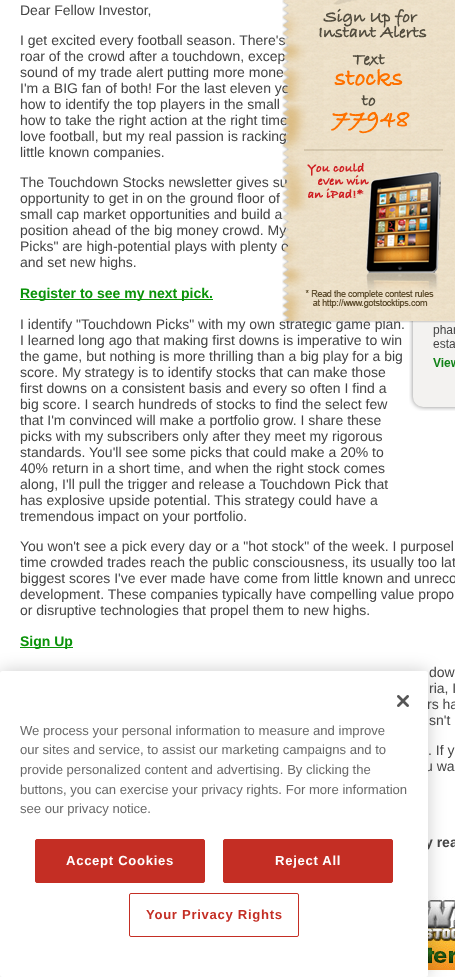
<!DOCTYPE html>
<meta charset="utf-8">
<style>body { margin: 0 } canvas { display: block }</style>
<canvas id="canvas" width="455" height="977"></canvas>
<img id="img1" src="img_02.png" hidden>
<img id="img2" src="img_03.png" hidden>
<img id="img3" src="img_01.png" hidden>
<img id="img4" src="img_04.png" hidden>
<script>
window.onload = function () {
	const canvas = document.getElementById("canvas");
	const ctx = canvas.getContext("2d");
	ctx.miterLimit = 4;
	ctx.fontKerning = "normal";
	function txt(s, x, y) {
		ctx.fillText(s, x, y);
	}
	function fill(x, y, w, h) {
		ctx.fillRect(x, y, w, h);
	}
	function round(x, y, w, h, r) {
		ctx.beginPath();
		ctx.roundRect(x, y, w, h, r);
		ctx.fill();
	}
	function img(id, x, y, w, h) {
		ctx.drawImage(document.getElementById(id), x, y, w, h);
	}

	ctx.fillStyle = "#FFFFFF";
	fill(0, 0, 455, 977);
	ctx.fillStyle = "#0A9309";
	fill(20, 299, 193, 1);
	img("img1", 409, 321, 46, 90);
	fill(20, 647, 53, 1);
	img("img2", 427, 896, 28, 80);
	ctx.fillStyle = "rgba(0, 0, 0, 0.2)";
	ctx.filter = "blur(9px)";
	ctx.beginPath();
	ctx.roundRect(0, 671, 428, 306, 2.5);
	ctx.fill();
	ctx.filter = "none";
	ctx.font = "14px Liberation Sans";
	ctx.fillStyle = "#444444";
	txt("Dear Fellow Investor,", 20, 15);
	txt("I get excited every football season. There's", 20, 45);
	txt("roar of the crowd after a touchdown, excep", 20, 61);
	txt("sound of my trade alert putting more mone", 20, 77);
	txt("I'm a BIG fan of both! For the last eleven ye", 20, 93);
	txt("how to identify the top players in the small", 20, 109);
	txt("how to take the right action at the right time", 20, 125);
	txt("love football, but my real passion is racking", 20, 141);
	txt("little known companies.", 20, 157);
	txt("The Touchdown Stocks newsletter gives su", 20, 187);
	txt("opportunity to get in on the ground floor of", 20, 203);
	txt("small cap market opportunities and build a", 20, 219);
	txt("position ahead of the big money crowd. My", 20, 235);
	txt("Picks\" are high-potential plays with plenty o", 20, 251);
	txt("and set new highs.", 20, 267);
	ctx.font = "bold 14px Liberation Sans";
	ctx.fillStyle = "#0A9309";
	txt("Register to see my next pick.", 20, 298);
	ctx.font = "14px Liberation Sans";
	ctx.fillStyle = "#444444";
	txt("I identify \"Touchdown Picks\" with my own strategic game plan.", 20, 329);
	img("img3", 282, 0, 173, 323);
	txt("I learned long ago that making first downs is imperative to win", 20, 345);
	txt("the game, but nothing is more thrilling than a big play for a big", 20, 361);
	txt("score. My strategy is to identify stocks that can make those", 20, 377);
	txt("first downs on a consistent basis and every so often I find a", 20, 393);
	txt("big score. I search hundreds of stocks to find the select few", 20, 409);
	txt("that I'm convinced will make a portfolio grow. I share these", 20, 425);
	txt("picks with my subscribers only after they meet my rigorous", 20, 441);
	txt("standards. You'll see some picks that could make a 20% to", 20, 457);
	txt("40% return in a short time, and when the right stock comes", 20, 473);
	txt("along, I'll pull the trigger and release a Touchdown Pick that", 20, 489);
	txt("has explosive upside potential. This strategy could have a", 20, 505);
	txt("tremendous impact on your portfolio.", 20, 521);
	txt("You won't see a pick every day or a \"hot stock\" of the week. I purposel", 20, 551);
	txt("time crowded trades reach the public consciousness, its usually too lat", 20, 567);
	txt("biggest scores I've ever made have come from little known and unreco", 20, 583);
	txt("development. These companies typically have compelling value propo", 20, 599);
	txt("or disruptive technologies that propel them to new highs.", 20, 615);
	ctx.font = "bold 14px Liberation Sans";
	ctx.fillStyle = "#0A9309";
	txt("Sign Up", 20, 646);
	ctx.font = "14px Liberation Sans";
	ctx.fillStyle = "#444444";
	txt("dow", 429, 677);
	txt("ria, I", 429, 693);
	txt("rs ha", 427, 709);
	txt("sn't", 429, 725);
	txt(". If y", 428, 755);
	txt("u wa", 425, 771);
	ctx.font = "bold 14px Liberation Sans";
	txt("y rea", 425, 847);
	ctx.fillStyle = "#FFFFFF";
	round(0, 671, 428, 306, 2.5);
	img("img4", 397, 695, 12, 12);
	ctx.font = "13.1px Liberation Sans";
	ctx.fillStyle = "#696969";
	txt("We process your personal information to measure and improve", 20, 735);
	txt("our sites and service, to assist our marketing campaigns and to", 20, 754);
	txt("provide personalized content and advertising. By clicking the", 20, 774);
	txt("buttons, you can exercise your privacy rights. For more information", 20, 794);
	txt("see our privacy notice.", 20, 813);
	ctx.fillStyle = "#C42E24";
	ctx.beginPath();
	ctx.roundRect(35.5, 839.5, 169, 43, 1.5);
	ctx.fill();
	ctx.strokeStyle = "#C42E24";
	ctx.stroke();
	ctx.letterSpacing = "0.7px";
	ctx.font = "bold 13.1px Liberation Sans";
	ctx.fillStyle = "#FFFFFF";
	txt("Accept Cookies", 66, 865);
	ctx.fillStyle = "#C42E24";
	ctx.beginPath();
	ctx.roundRect(223.5, 839.5, 169, 43, 1.5);
	ctx.fill();
	ctx.stroke();
	ctx.fillStyle = "#FFFFFF";
	txt("Reject All", 275, 865);
	ctx.beginPath();
	ctx.roundRect(129.5, 893.5, 169, 43, 1.5);
	ctx.stroke();
	ctx.fillStyle = "#C42E24";
	txt("Your Privacy Rights", 146, 919);
};
</script>
